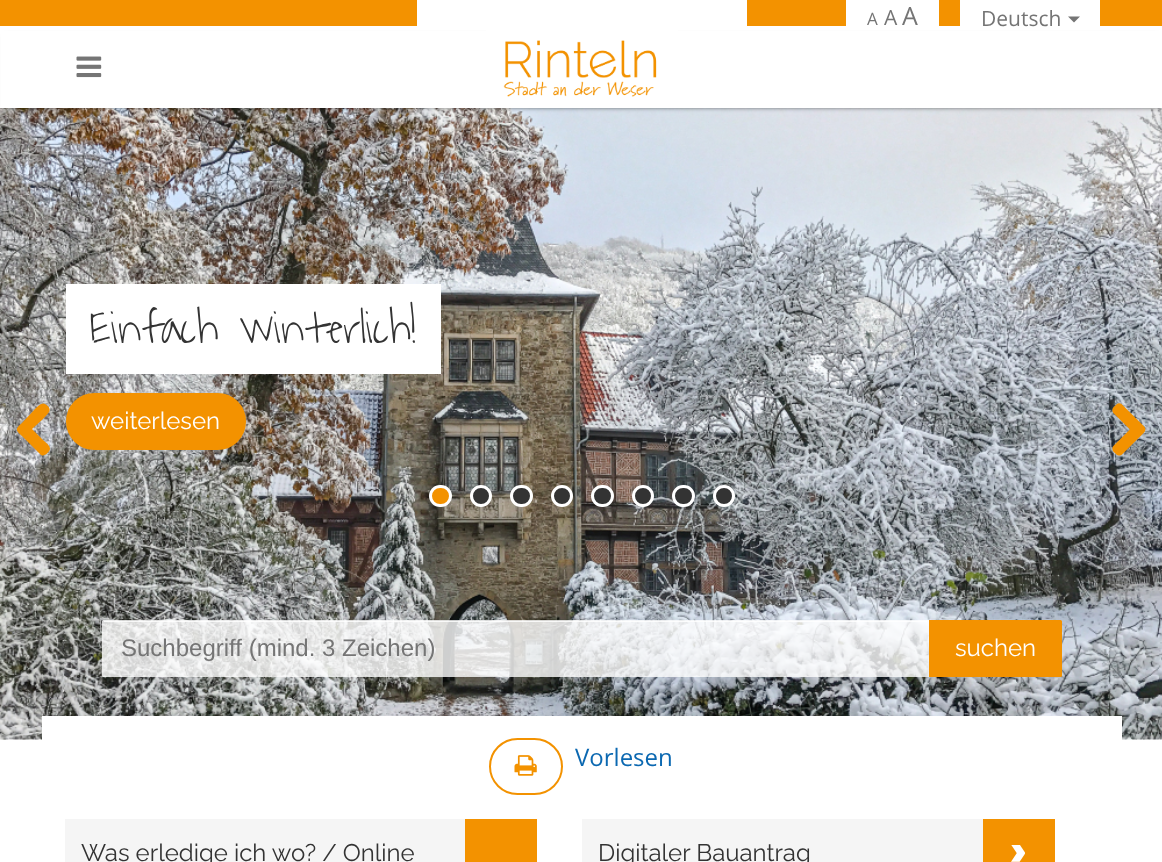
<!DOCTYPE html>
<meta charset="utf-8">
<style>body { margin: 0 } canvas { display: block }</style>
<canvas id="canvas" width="1162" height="862"></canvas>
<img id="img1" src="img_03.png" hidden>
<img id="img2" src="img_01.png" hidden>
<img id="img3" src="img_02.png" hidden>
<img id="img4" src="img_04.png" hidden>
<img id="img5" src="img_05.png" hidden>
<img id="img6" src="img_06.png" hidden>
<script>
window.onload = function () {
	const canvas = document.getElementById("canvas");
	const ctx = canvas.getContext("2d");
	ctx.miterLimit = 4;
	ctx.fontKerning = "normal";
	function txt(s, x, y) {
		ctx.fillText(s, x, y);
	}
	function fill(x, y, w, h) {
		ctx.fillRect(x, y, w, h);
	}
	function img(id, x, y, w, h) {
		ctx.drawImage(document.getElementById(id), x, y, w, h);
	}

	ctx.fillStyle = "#FFFFFF";
	fill(0, 0, 1162, 862);
	img("img1", 0, 108, 1162, 632);
	ctx.fillStyle = "rgba(0, 0, 0, 0.5)";
	ctx.filter = "blur(2px)";
	ctx.beginPath();
	ctx.rect(5, 35, 1153, 73);
	ctx.fill();
	ctx.filter = "none";
	ctx.fillStyle = "#FFFFFF";
	fill(1, 31, 1161, 77);
	img("img2", 76, 56, 26, 22);
	img("img3", 486, 26, 192, 71);
	ctx.fillStyle = "#F39200";
	fill(0, 0, 1162, 26);
	ctx.fillStyle = "#FFFFFF";
	fill(417, 0, 330, 26);
	fill(846, 0, 93, 26);
	fill(960, 0, 140, 26);
	ctx.fillStyle = "#757575";
	ctx.beginPath();
	ctx.moveTo(1068, 16.5);
	ctx.lineTo(1080, 16.5);
	ctx.lineTo(1074, 22.5);
	ctx.closePath();
	ctx.fill();
	ctx.fillStyle = "#FFFFFF";
	fill(66, 284, 375, 90);
	ctx.fillStyle = "#F39200";
	ctx.beginPath();
	ctx.roundRect(67, 394, 178, 55, 27.5);
	ctx.fill();
	ctx.strokeStyle = "#F39200";
	ctx.lineWidth = 2;
	ctx.stroke();
	ctx.beginPath();
	ctx.moveTo(40, 454);
	ctx.lineTo(22, 436);
	ctx.bezierCurveTo(15, 430, 15, 429, 22, 423);
	ctx.lineTo(36, 408);
	ctx.bezierCurveTo(38, 406, 42, 402, 45, 404);
	ctx.bezierCurveTo(54, 410, 48, 413, 43, 419);
	ctx.lineTo(32, 429);
	ctx.lineTo(43, 440);
	ctx.bezierCurveTo(45, 442, 50, 445, 50, 449);
	ctx.bezierCurveTo(49, 453, 43, 458, 40, 454);
	ctx.closePath();
	ctx.fill();
	img("img4", 1112, 403, 34, 53);
	ctx.beginPath();
	ctx.roundRect(430.5, 486.5, 20, 19, 9.5);
	ctx.fill();
	ctx.strokeStyle = "#FFFFFF";
	ctx.lineWidth = 3;
	ctx.stroke();
	ctx.fillStyle = "#333333";
	ctx.beginPath();
	ctx.arc(481, 496, 9.5, 0, Math.PI * 2);
	ctx.fill();
	ctx.stroke();
	ctx.beginPath();
	ctx.roundRect(511.5, 486.5, 20, 19, 9.5);
	ctx.fill();
	ctx.stroke();
	ctx.beginPath();
	ctx.arc(562, 496, 9.5, 0, Math.PI * 2);
	ctx.fill();
	ctx.stroke();
	ctx.beginPath();
	ctx.roundRect(592.5, 486.5, 20, 19, 9.5);
	ctx.fill();
	ctx.stroke();
	ctx.beginPath();
	ctx.arc(643, 496, 9.5, 0, Math.PI * 2);
	ctx.fill();
	ctx.stroke();
	ctx.beginPath();
	ctx.roundRect(673.5, 486.5, 20, 19, 9.5);
	ctx.fill();
	ctx.stroke();
	ctx.beginPath();
	ctx.arc(724, 496, 9.5, 0, Math.PI * 2);
	ctx.fill();
	ctx.stroke();
	ctx.fillStyle = "rgba(255, 255, 255, 0.8)";
	fill(104, 621, 823, 54);
	ctx.beginPath();
	ctx.roundRect(103, 621, 825, 55, [0.5, 0, 0, 0.5]);
	ctx.strokeStyle = "rgba(255, 255, 255, 0.8)";
	ctx.lineWidth = 2;
	ctx.stroke();
	ctx.fillStyle = "#F39200";
	ctx.beginPath();
	ctx.roundRect(930, 621, 131, 55, [0, 0.5, 0.5, 0]);
	ctx.fill();
	ctx.strokeStyle = "#F39200";
	ctx.stroke();
	ctx.fillStyle = "#FFFFFF";
	fill(42, 716, 1080, 24);
	ctx.beginPath();
	ctx.roundRect(490, 739, 72, 55, 27.5);
	ctx.stroke();
	img("img5", 514, 755, 23, 21);
	ctx.fillStyle = "#F5F5F5";
	fill(65, 819, 400, 43);
	ctx.fillStyle = "#F39200";
	fill(465, 819, 72, 43);
	ctx.fillStyle = "#F5F5F5";
	fill(582, 819, 401, 43);
	ctx.fillStyle = "#F39200";
	fill(983, 819, 72, 43);
	img("img6", 1011, 845, 14, 17);
	ctx.font = "17px Open Sans";
	ctx.fillStyle = "#757575";
	txt("A", 867, 25);
	ctx.font = "21px Open Sans";
	txt("A", 884, 25);
	ctx.font = "25px Open Sans";
	txt("A", 902, 25);
	ctx.font = "21px Open Sans";
	txt("Deutsch", 981, 26);
	ctx.font = "300 48px Waiting for the Sunrise";
	ctx.fillStyle = "#333333";
	txt("Einfach winterlich!", 89, 343);
	ctx.font = "100 24px Raleway";
	ctx.fillStyle = "#FFFFFF";
	txt("weiterlesen", 91, 429);
	ctx.font = "24px Liberation Sans";
	ctx.fillStyle = "#757575";
	txt("Suchbegriff (mind. 3 Zeichen)", 121, 656);
	ctx.font = "100 24px Raleway";
	ctx.fillStyle = "#FFFFFF";
	txt("suchen", 955, 656);
	ctx.font = "24px Open Sans";
	ctx.fillStyle = "#0B68B1";
	txt("Vorlesen", 575, 766);
	ctx.font = "100 24px Raleway";
	ctx.fillStyle = "#333333";
	txt("Was erledige ich wo? / Online", 81, 861);
	txt("Digitaler Bauantrag", 598, 861);
};
</script>
